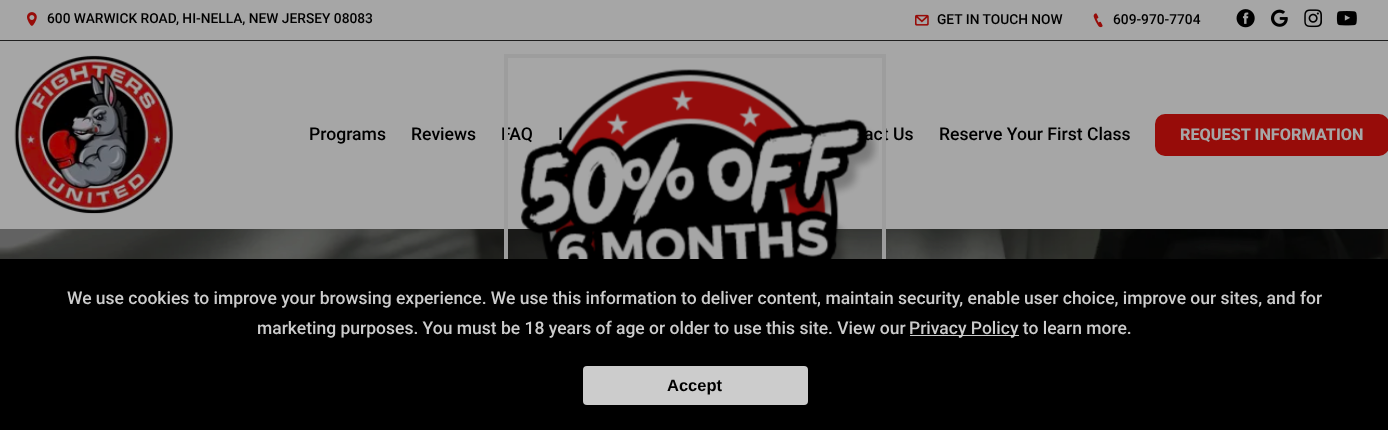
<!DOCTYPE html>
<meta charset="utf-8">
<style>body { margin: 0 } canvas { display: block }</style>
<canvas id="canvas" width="1388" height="430"></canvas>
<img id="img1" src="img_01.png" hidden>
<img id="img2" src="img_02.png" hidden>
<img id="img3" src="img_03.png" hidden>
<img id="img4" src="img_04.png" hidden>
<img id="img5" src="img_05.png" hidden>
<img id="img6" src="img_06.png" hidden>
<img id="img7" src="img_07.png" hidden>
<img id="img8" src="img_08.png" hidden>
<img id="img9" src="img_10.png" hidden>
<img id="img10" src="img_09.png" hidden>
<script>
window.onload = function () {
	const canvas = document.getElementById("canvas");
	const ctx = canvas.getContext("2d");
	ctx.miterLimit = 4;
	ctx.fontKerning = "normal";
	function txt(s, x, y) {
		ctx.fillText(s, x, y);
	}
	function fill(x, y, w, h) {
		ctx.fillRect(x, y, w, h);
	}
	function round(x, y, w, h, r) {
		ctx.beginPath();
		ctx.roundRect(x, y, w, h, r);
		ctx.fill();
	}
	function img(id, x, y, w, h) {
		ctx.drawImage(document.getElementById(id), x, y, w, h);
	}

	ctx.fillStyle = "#000000";
	fill(0, 0, 1388, 430);
	ctx.fillStyle = "#A6A6A6";
	fill(0, 0, 1388, 229);
	ctx.fillStyle = "#1F1F1F";
	fill(0, 40, 1388, 1);
	img("img1", 27, 12, 10, 14);
	img("img2", 915, 14, 14, 12);
	img("img3", 1093, 13, 10, 15);
	img("img4", 1236, 9, 19, 19);
	img("img5", 1270, 9, 18, 18);
	img("img6", 1304, 9, 18, 19);
	img("img7", 1336, 11, 21, 15);
	img("img8", 14, 55, 159, 159);
	ctx.fillStyle = "#970C09";
	round(1155, 114, 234, 42, 10);
	img("img9", 0, 229, 1388, 30);
	ctx.fillStyle = "#CCCCCC";
	fill(910, 335, 109, 1);
	ctx.font = "500 13.75px Roboto";
	ctx.fillStyle = "#000000";
	txt("600 WARWICK ROAD, HI-NELLA, NEW JERSEY 08083", 47, 23);
	txt("GET IN TOUCH NOW", 937, 24);
	txt("609-970-7704", 1113, 24);
	ctx.font = "500 17.6px Roboto";
	txt("Programs", 309, 140);
	txt("Reviews", 411, 140);
	txt("FAQ", 501, 140);
	txt("I", 558, 140);
	txt("act Us", 864, 140);
	txt("Reserve Your First Class", 939, 140);
	ctx.font = "800 16.25px Roboto";
	ctx.fillStyle = "#A6A6A6";
	txt("REQUEST INFORMATION", 1180, 140);
	ctx.strokeStyle = "#9D9D9D";
	ctx.lineWidth = 4;
	ctx.strokeRect(506, 56, 378, 318);
	img("img10", 520, 69, 359, 190);
	ctx.fillStyle = "#000000";
	fill(504, 259, 382, 117);
	ctx.font = "500 17.5px Roboto";
	ctx.fillStyle = "#CCCCCC";
	txt("We use cookies to improve your browsing experience. We use this information to deliver content, maintain security, enable user choice, improve our sites, and for", 67, 304);
	txt("marketing purposes. You must be 18 years of age or older to use this site. View our", 257, 334);
	txt("Privacy Policy to learn more.", 909, 334);
	round(583, 366, 225, 39, 4);
	ctx.font = "bold 16.5px Liberation Sans";
	ctx.fillStyle = "#000000";
	txt("Accept", 667, 391);
};
</script>
